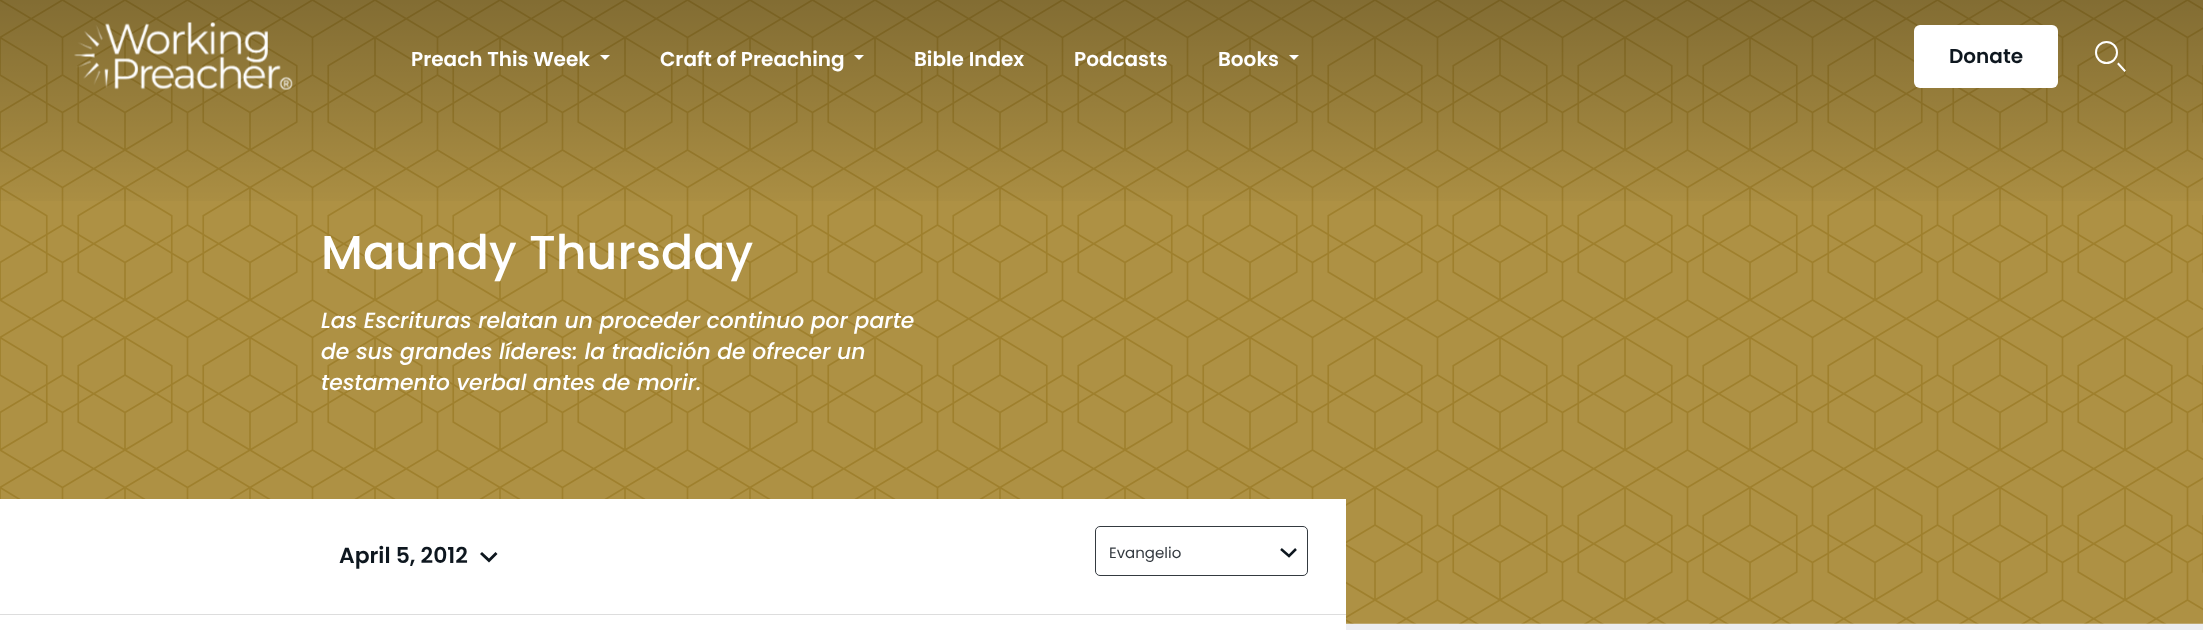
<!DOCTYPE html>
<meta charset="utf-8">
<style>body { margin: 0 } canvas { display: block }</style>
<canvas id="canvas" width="2203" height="630"></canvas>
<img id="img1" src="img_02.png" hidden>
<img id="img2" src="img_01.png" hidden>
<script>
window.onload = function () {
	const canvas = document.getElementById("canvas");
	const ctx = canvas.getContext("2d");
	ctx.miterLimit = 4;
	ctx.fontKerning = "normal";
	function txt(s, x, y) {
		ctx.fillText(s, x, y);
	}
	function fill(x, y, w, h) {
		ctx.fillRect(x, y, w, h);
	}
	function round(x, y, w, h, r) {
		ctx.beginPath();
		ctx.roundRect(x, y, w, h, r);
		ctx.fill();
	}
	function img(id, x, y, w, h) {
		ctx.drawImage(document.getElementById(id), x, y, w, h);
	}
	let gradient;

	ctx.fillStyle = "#EDEEF2";
	fill(0, 0, 2203, 630);
	img("img1", 0, 0, 2203, 624);
	gradient = ctx.createLinearGradient(1102, 0, 1102, 630);
	gradient.addColorStop(0, "rgba(0, 0, 0, 0.25)");
	gradient.addColorStop(0.35, "rgba(0, 0, 0, 0)");
	ctx.fillStyle = gradient;
	fill(0, 0, 2203, 201);
	img("img2", 74, 22, 219, 69);
	ctx.fillStyle = "#FFFFFF";
	ctx.beginPath();
	ctx.moveTo(600, 55);
	ctx.lineTo(610, 55);
	ctx.lineTo(605, 60);
	ctx.closePath();
	ctx.fill();
	ctx.beginPath();
	ctx.moveTo(854, 55);
	ctx.lineTo(864, 55);
	ctx.lineTo(859, 60);
	ctx.closePath();
	ctx.fill();
	ctx.beginPath();
	ctx.moveTo(1289, 55);
	ctx.lineTo(1299, 55);
	ctx.lineTo(1294, 60);
	ctx.closePath();
	ctx.fill();
	round(1914, 25, 144, 63, 6);
	ctx.beginPath();
	ctx.arc(2106.5, 52.5, 10.5, 0, Math.PI * 2);
	ctx.strokeStyle = "#FFFFFF";
	ctx.lineWidth = 2;
	ctx.stroke();
	ctx.beginPath();
	ctx.moveTo(2118.5, 64);
	ctx.lineTo(2124.5, 70.5);
	ctx.lineCap = "square";
	ctx.stroke();
	fill(0, 499, 1346, 115);
	ctx.fillStyle = "#0E171F";
	ctx.beginPath();
	ctx.moveTo(495.5, 552);
	ctx.lineTo(489, 558.5);
	ctx.lineTo(482, 552);
	ctx.lineTo(480, 554);
	ctx.lineTo(489, 562.5);
	ctx.lineTo(497.5, 554);
	ctx.closePath();
	ctx.fill();
	ctx.beginPath();
	ctx.moveTo(1281, 549);
	ctx.lineTo(1289, 556);
	ctx.lineTo(1296, 549);
	ctx.strokeStyle = "#0E171F";
	ctx.lineWidth = 2.5;
	ctx.lineCap = "butt";
	ctx.stroke();
	ctx.beginPath();
	ctx.roundRect(1095.5, 526.5, 212, 49, 4.5);
	ctx.strokeStyle = "#343A40";
	ctx.lineWidth = 1;
	ctx.stroke();
	ctx.fillStyle = "#DDDDDD";
	fill(0, 614, 1346, 1);
	ctx.fillStyle = "#FFFFFF";
	fill(0, 615, 1346, 15);
	ctx.font = "600 20px Poppins";
	txt("Preach This Week", 411, 66);
	txt("Craft of Preaching", 660, 66);
	txt("Bible Index", 914, 66);
	txt("Podcasts", 1074, 66);
	txt("Books", 1218, 66);
	ctx.fillStyle = "#0E171F";
	txt("Donate", 1949, 63);
	ctx.font = "500 47.5px Poppins";
	ctx.fillStyle = "#FFFFFF";
	txt("Maundy Thursday", 321, 269);
	ctx.font = "italic 500 21.9px Poppins";
	txt("Las Escrituras relatan un proceder continuo por parte", 321, 328);
	txt("de sus grandes líderes: la tradición de ofrecer un", 321, 359);
	txt("testamento verbal antes de morir.", 321, 390);
	ctx.font = "600 21.9px Poppins";
	ctx.fillStyle = "#0E171F";
	txt("April 5, 2012", 339, 563);
	ctx.font = "15px Poppins";
	ctx.fillStyle = "#343A40";
	txt("Evangelio", 1109, 558);
};
</script>
